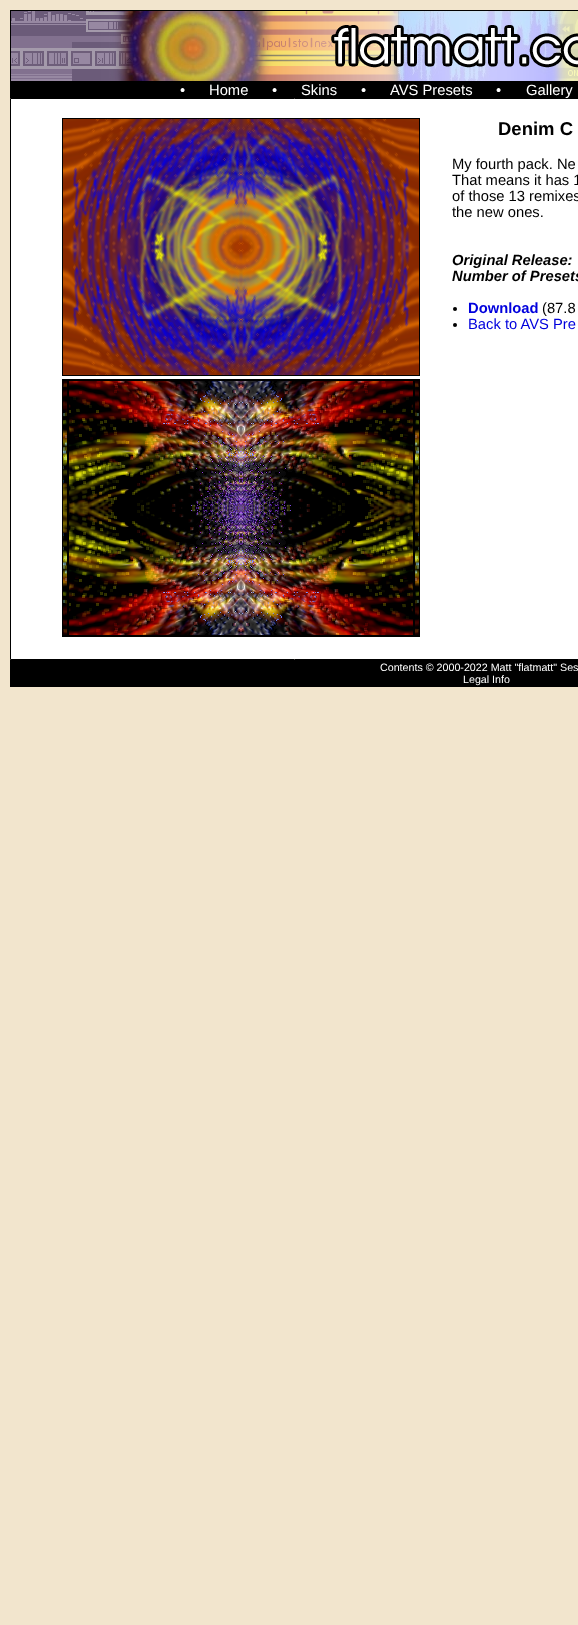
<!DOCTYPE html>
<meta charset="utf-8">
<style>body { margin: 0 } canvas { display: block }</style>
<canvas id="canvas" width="578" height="1625"></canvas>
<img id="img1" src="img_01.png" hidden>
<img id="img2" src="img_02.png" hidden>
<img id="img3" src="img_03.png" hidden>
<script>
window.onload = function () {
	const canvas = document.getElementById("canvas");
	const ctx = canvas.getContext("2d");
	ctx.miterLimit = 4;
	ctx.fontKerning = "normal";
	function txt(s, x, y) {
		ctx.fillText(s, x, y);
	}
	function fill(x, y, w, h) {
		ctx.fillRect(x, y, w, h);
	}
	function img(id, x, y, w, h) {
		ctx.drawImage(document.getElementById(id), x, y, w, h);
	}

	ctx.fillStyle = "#F2E5CD";
	fill(0, 0, 578, 1625);
	ctx.fillStyle = "#000000";
	fill(10, 10, 568, 1);
	fill(10, 10, 1, 71);
	img("img1", 11, 11, 567, 70);
	fill(11, 82, 567, 16);
	fill(10, 81, 568, 1);
	fill(10, 81, 1, 17);
	ctx.fillStyle = "#FFFFFF";
	ctx.beginPath();
	ctx.rect(10.5, 98.5, 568, 561);
	ctx.fill();
	ctx.strokeStyle = "#000000";
	ctx.stroke();
	ctx.strokeRect(62.5, 118.5, 357, 257);
	img("img2", 63, 119, 356, 256);
	ctx.strokeRect(62.5, 379.5, 357, 257);
	img("img3", 63, 380, 356, 256);
	ctx.fillStyle = "#000000";
	ctx.beginPath();
	ctx.arc(455, 309, 2, 0, Math.PI * 2);
	ctx.fill();
	ctx.beginPath();
	ctx.arc(455, 325, 2, 0, Math.PI * 2);
	ctx.fill();
	fill(11, 661, 567, 24);
	fill(10, 660, 568, 1);
	fill(10, 685, 568, 2);
	fill(10, 660, 1, 27);
	ctx.font = "14.75px Liberation Sans";
	ctx.fillStyle = "#FFFFFF";
	txt("•", 180, 95);
	txt("Home", 209, 95);
	txt("•", 272, 95);
	txt("Skins", 301, 95);
	txt("•", 361, 95);
	txt("AVS Presets", 390, 95);
	txt("•", 496, 95);
	txt("Gallery", 526, 95);
	ctx.font = "bold 18.5px Liberation Sans";
	ctx.fillStyle = "#000000";
	txt("Denim C", 498, 135);
	ctx.font = "14.75px Liberation Sans";
	txt("My fourth pack. Ne", 452, 169);
	txt("That means it has 1", 452, 185);
	txt("of those 13 remixes", 452, 201);
	txt("the new ones.", 452, 217);
	ctx.font = "italic bold 14.75px Liberation Sans";
	txt("Original Release:", 452, 265);
	txt("Number of Presets", 452, 281);
	ctx.font = "bold 14.75px Liberation Sans";
	ctx.fillStyle = "#0000DD";
	txt("Download", 468, 313);
	ctx.font = "14.75px Liberation Sans";
	ctx.fillStyle = "#000000";
	txt("(87.8", 542, 313);
	ctx.fillStyle = "#0000DD";
	txt("Back to AVS Pre", 468, 329);
	ctx.font = "10.7px Liberation Sans";
	ctx.fillStyle = "#FFFFFF";
	txt("Contents © 2000-2022 Matt \"flatmatt\" Ses", 380, 671);
	txt("Legal Info", 463, 683);
};
</script>
